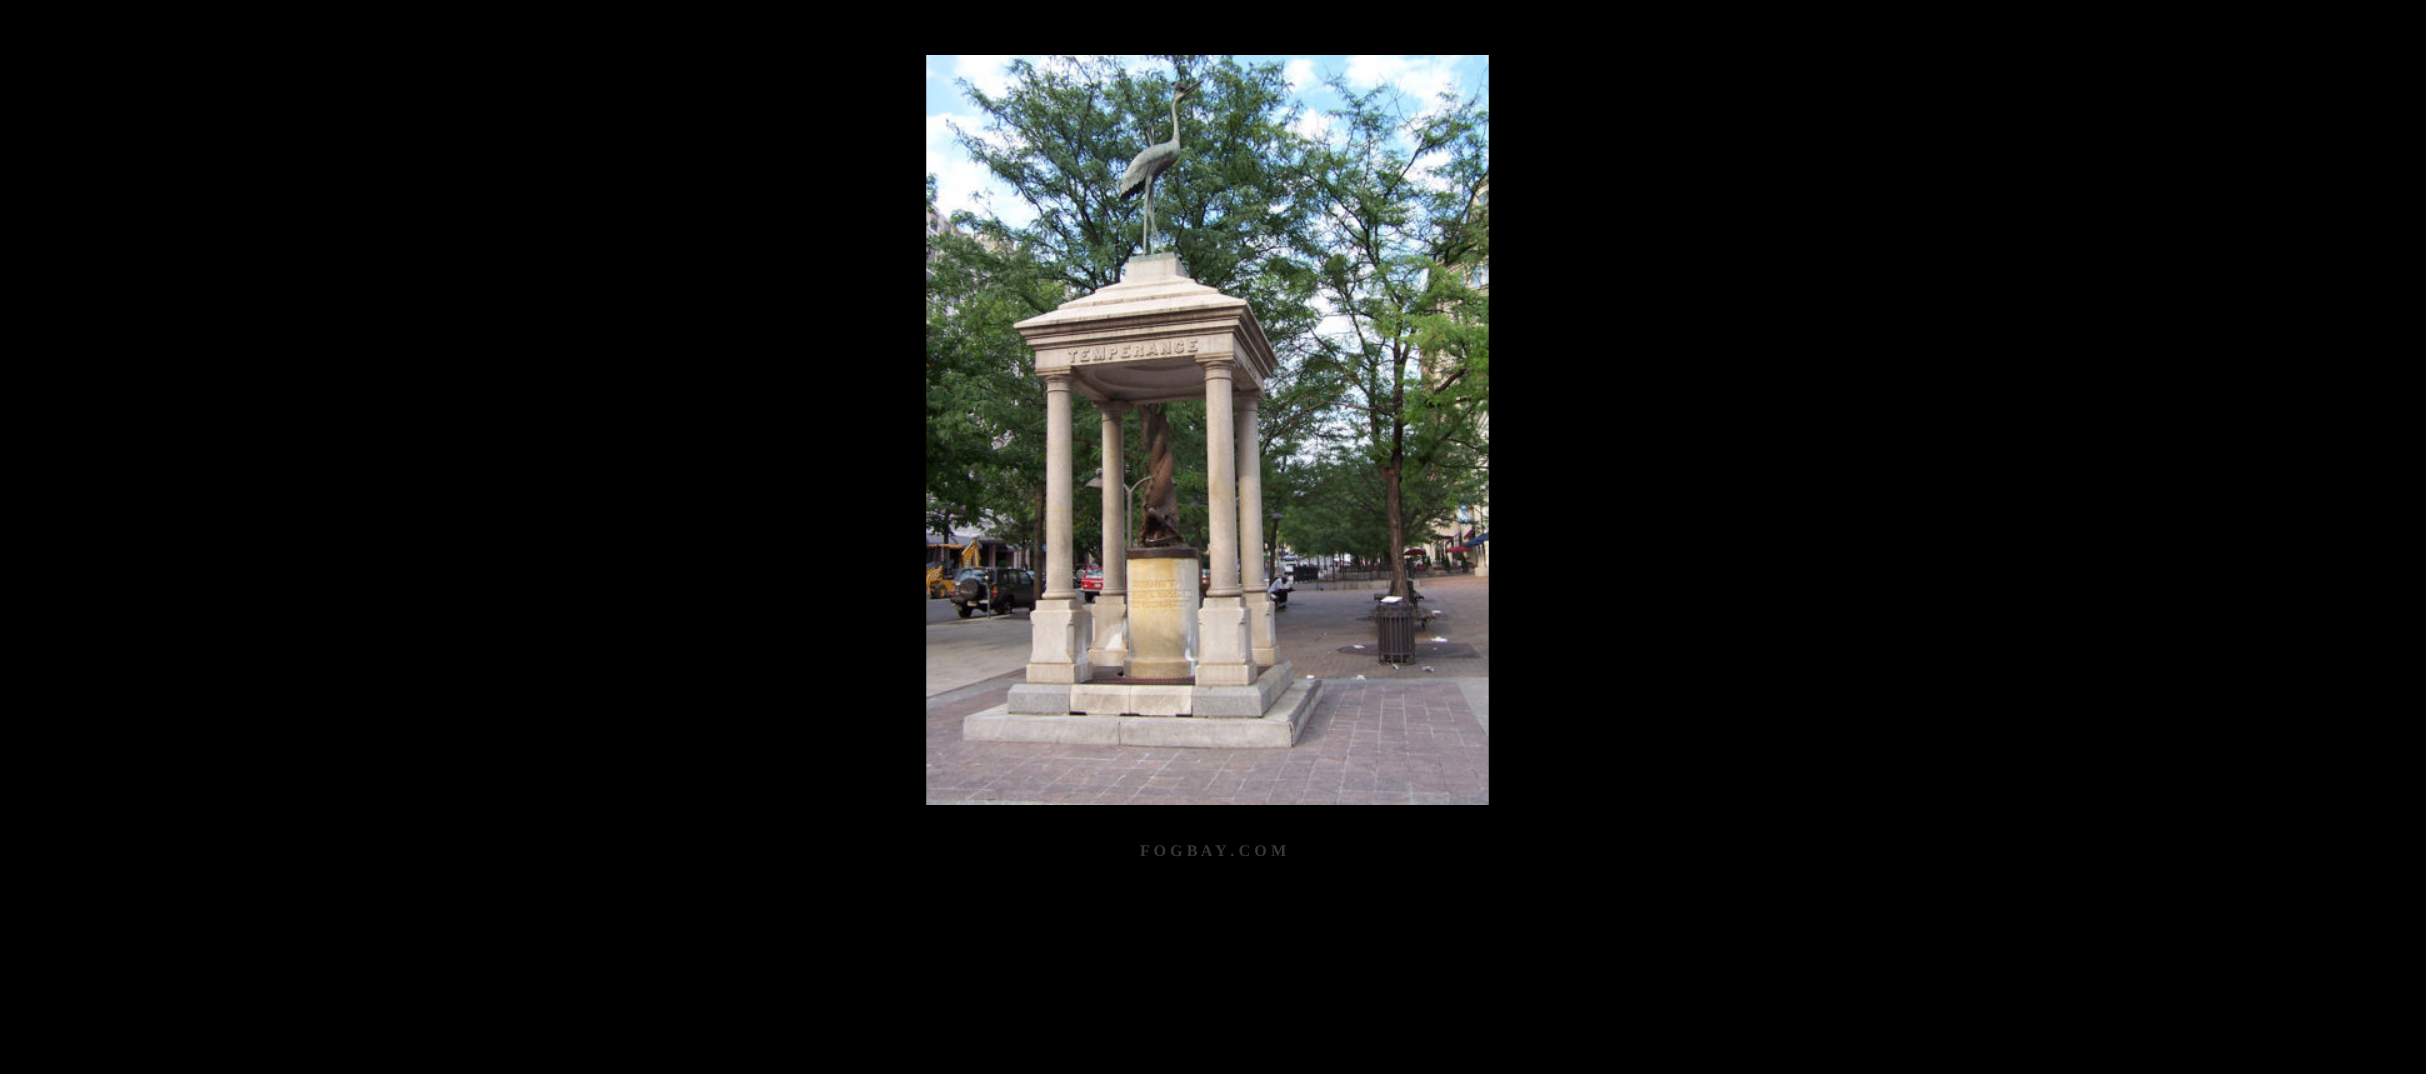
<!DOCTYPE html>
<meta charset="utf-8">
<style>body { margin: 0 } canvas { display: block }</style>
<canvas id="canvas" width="2426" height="1074"></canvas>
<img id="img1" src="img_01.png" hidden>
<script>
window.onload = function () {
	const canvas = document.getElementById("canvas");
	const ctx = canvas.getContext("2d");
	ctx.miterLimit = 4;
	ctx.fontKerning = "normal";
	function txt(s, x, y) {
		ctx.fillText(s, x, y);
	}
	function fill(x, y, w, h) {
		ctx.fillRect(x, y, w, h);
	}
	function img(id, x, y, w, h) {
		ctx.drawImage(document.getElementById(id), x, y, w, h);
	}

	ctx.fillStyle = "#000000";
	fill(0, 0, 2426, 1074);
	img("img1", 926, 55, 563, 750);
	ctx.font = "bold 16.25px Liberation Serif";
	ctx.fillStyle = "#363636";
	txt("F O G B A Y . C O M", 1140, 856);
};
</script>
